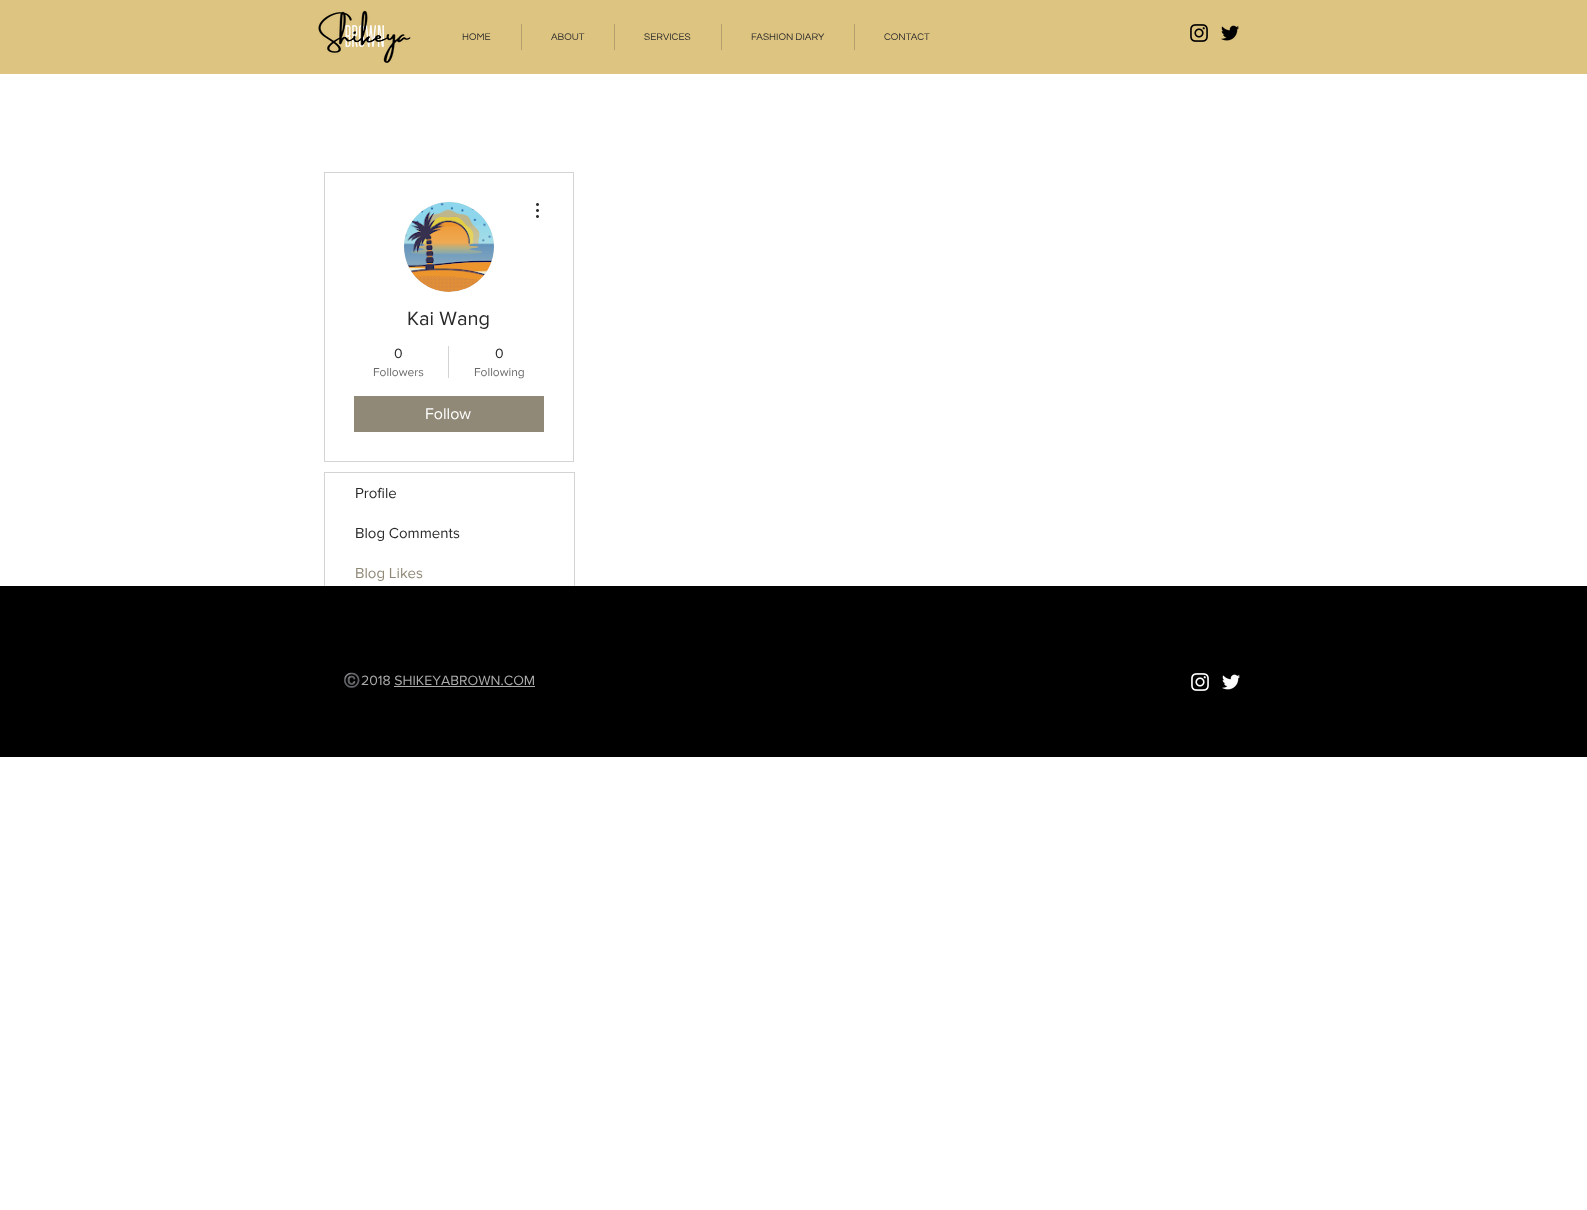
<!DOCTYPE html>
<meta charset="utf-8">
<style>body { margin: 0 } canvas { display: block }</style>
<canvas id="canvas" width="1587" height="1210"></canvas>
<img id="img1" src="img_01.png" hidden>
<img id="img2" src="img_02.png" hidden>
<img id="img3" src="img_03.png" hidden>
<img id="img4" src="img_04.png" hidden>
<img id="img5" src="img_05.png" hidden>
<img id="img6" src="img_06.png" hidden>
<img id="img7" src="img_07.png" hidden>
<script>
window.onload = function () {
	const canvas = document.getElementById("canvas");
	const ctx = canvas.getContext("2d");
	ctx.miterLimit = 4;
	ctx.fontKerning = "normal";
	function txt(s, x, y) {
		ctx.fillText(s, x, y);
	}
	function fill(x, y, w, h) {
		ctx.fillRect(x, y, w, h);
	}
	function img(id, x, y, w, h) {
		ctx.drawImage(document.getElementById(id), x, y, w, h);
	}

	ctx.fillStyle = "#FFFFFF";
	fill(0, 0, 1587, 1210);
	ctx.fillStyle = "#DEC481";
	fill(0, 0, 1587, 74);
	img("img1", 318, 10, 93, 53);
	ctx.fillStyle = "#B39F6C";
	fill(521, 24, 1, 26);
	fill(614, 24, 1, 26);
	fill(721, 24, 1, 26);
	fill(854, 24, 1, 26);
	img("img2", 1190, 24, 18, 18);
	img("img3", 1221, 25, 18, 16);
	ctx.strokeStyle = "#D4D4D4";
	ctx.strokeRect(324.5, 172.5, 249, 289);
	ctx.fillStyle = "#D8D8D8";
	ctx.beginPath();
	ctx.arc(449, 247, 45, 0, Math.PI * 2);
	ctx.fill();
	img("img4", 404, 202, 90, 90);
	img("img5", 536, 203, 3, 15);
	ctx.fillStyle = "#D4D4D4";
	fill(448, 346, 1, 32);
	ctx.fillStyle = "#908978";
	fill(354, 396, 190, 36);
	ctx.strokeRect(324.5, 472.5, 250, 121);
	ctx.fillStyle = "#000000";
	fill(0, 586, 1587, 171);
	ctx.fillStyle = "#AAAAAA";
	fill(394, 686, 141, 1);
	img("img6", 1191, 673, 18, 18);
	img("img7", 1222, 674, 18, 16);
	ctx.font = "10px Questrial";
	ctx.fillStyle = "#2A2A2A";
	txt("HOME", 462, 40);
	txt("ABOUT", 551, 40);
	txt("SERVICES", 644, 40);
	txt("FASHION DIARY", 751, 40);
	txt("CONTACT", 884, 40);
	ctx.font = "20px 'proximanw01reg'";
	txt("Kai Wang", 407, 325);
	ctx.font = "14px 'proximanw01reg'";
	txt("0", 394, 358);
	ctx.font = "12px 'proximanw01reg'";
	ctx.fillStyle = "#6A6A6A";
	txt("Followers", 373, 376);
	ctx.font = "14px 'proximanw01reg'";
	ctx.fillStyle = "#2A2A2A";
	txt("0", 495, 358);
	ctx.font = "12px 'proximanw01reg'";
	ctx.fillStyle = "#6A6A6A";
	txt("Following", 474, 376);
	ctx.font = "16px 'proximanw01reg'";
	ctx.fillStyle = "#FFFFFF";
	txt("Follow", 425, 419);
	ctx.font = "15px 'proximanw01reg'";
	ctx.fillStyle = "#2A2A2A";
	txt("Profile", 355, 498);
	txt("Blog Comments", 355, 538);
	ctx.fillStyle = "#908978";
	txt("Blog Likes", 355, 578);
	ctx.font = "14px Noto Color Emoji";
	ctx.fillStyle = "#AAAAAA";
	txt("©️", 343, 685);
	ctx.font = "14px 'proximanw01reg'";
	txt("2018 SHIKEYABROWN.COM", 361, 685);
};
</script>
